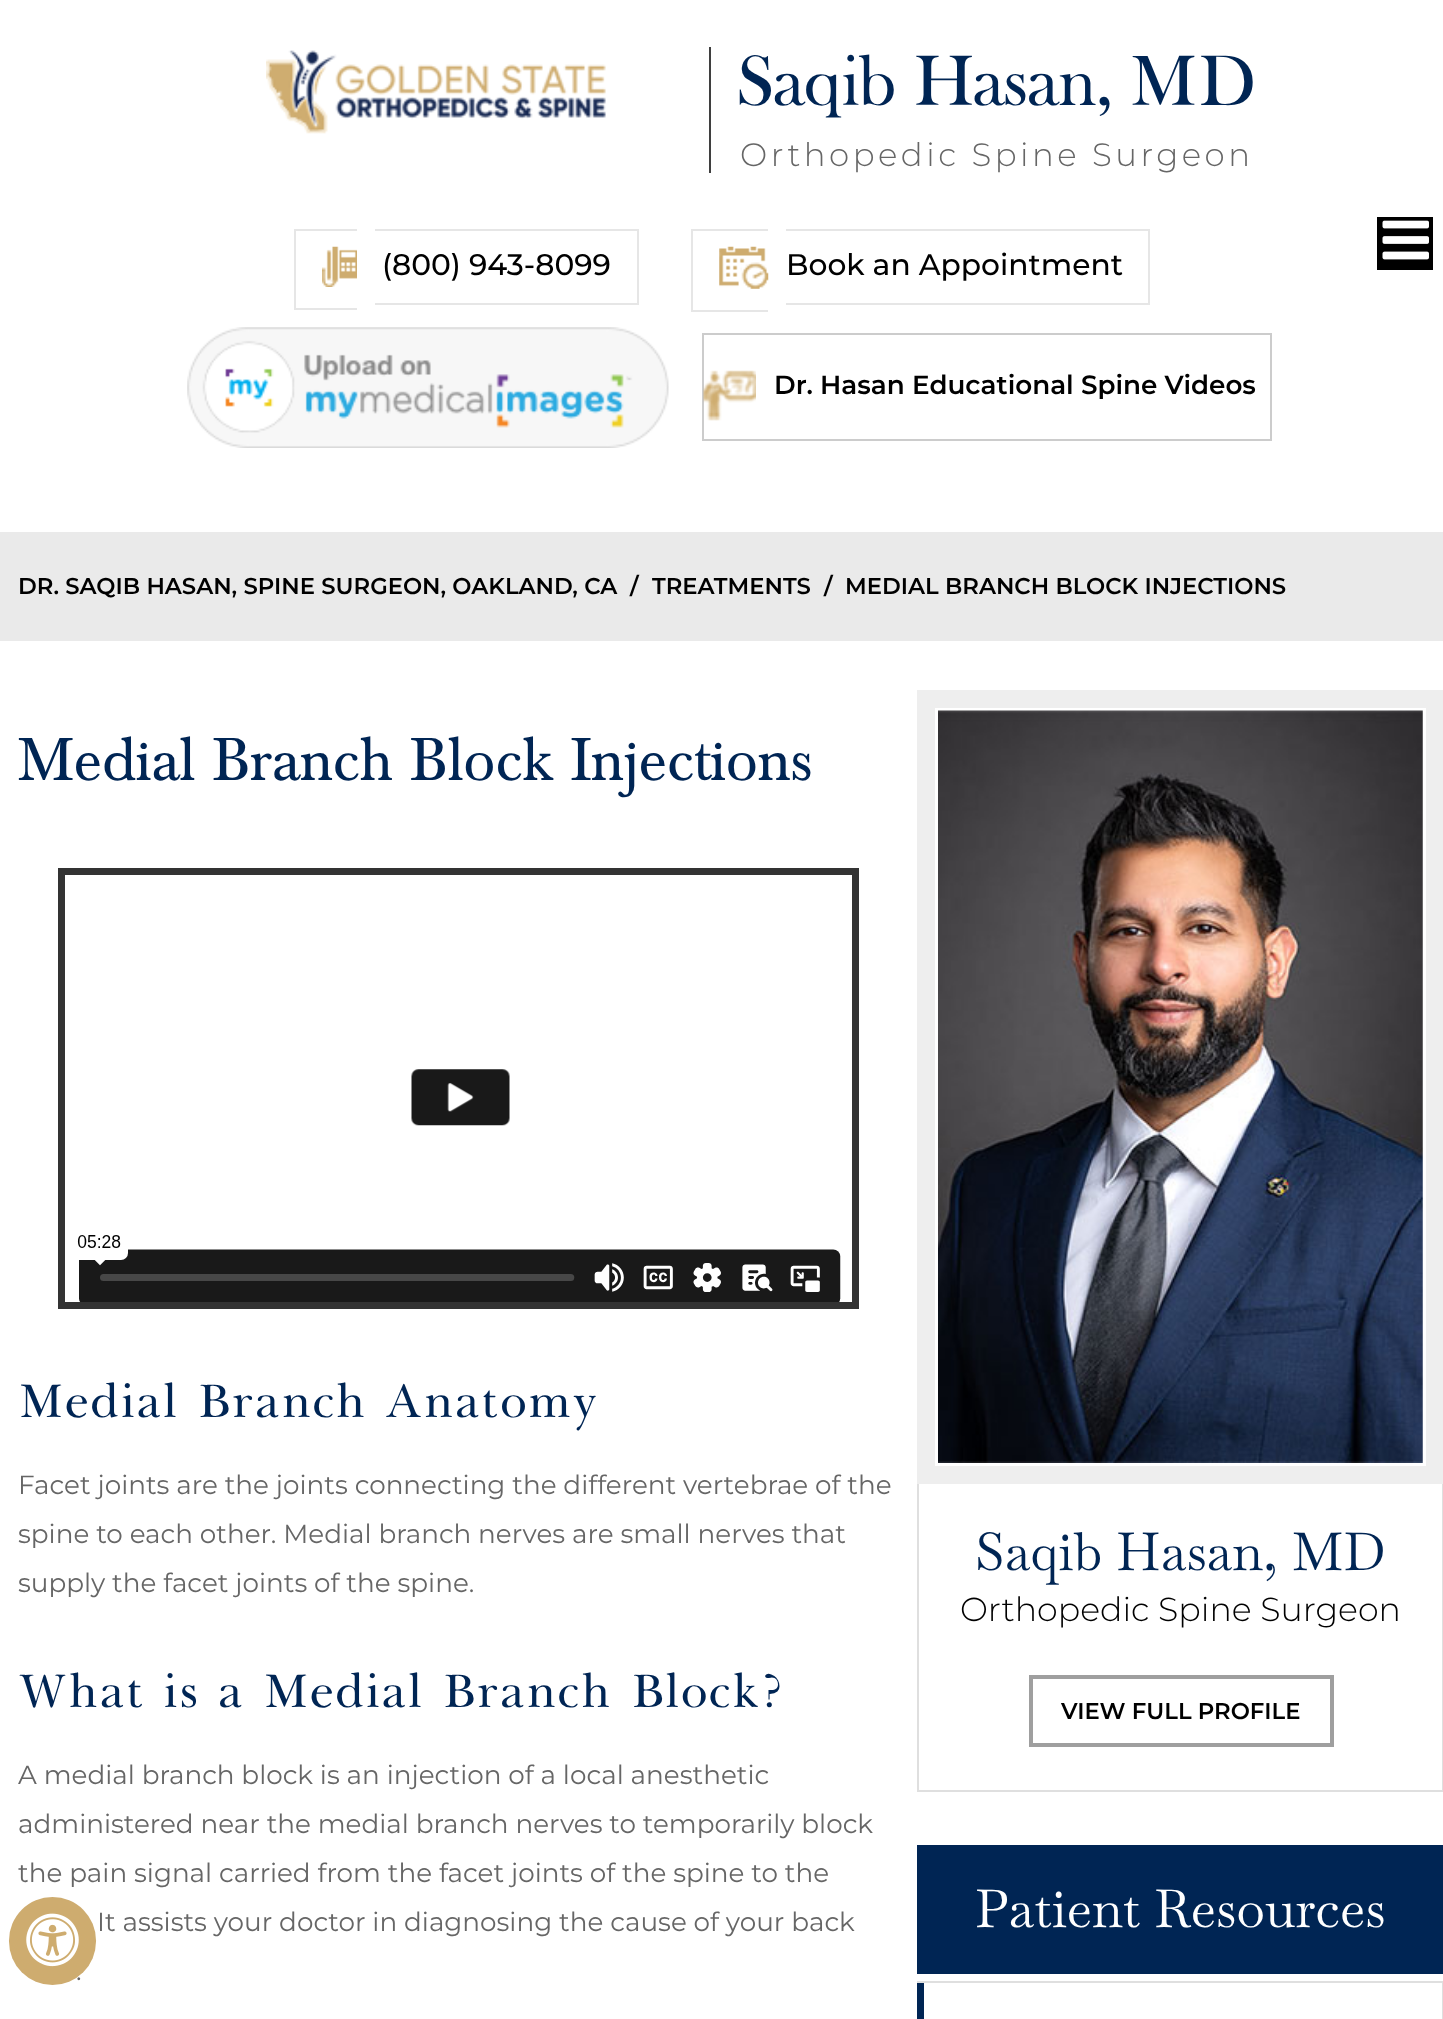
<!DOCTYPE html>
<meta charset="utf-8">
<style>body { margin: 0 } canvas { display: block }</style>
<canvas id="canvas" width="1443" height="2019"></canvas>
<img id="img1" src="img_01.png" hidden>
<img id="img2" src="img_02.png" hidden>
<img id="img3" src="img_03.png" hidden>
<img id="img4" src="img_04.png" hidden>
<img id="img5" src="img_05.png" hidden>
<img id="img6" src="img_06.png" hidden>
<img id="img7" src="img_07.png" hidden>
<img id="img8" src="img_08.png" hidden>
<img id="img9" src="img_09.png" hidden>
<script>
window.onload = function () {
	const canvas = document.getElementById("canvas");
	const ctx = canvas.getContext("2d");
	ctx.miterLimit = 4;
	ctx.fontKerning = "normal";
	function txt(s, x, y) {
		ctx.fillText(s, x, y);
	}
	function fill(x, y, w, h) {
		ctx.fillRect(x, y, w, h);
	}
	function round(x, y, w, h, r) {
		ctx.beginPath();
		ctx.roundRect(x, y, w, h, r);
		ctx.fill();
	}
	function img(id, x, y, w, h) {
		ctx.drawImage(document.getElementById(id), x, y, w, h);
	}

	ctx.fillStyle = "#FFFFFF";
	fill(0, 0, 1443, 2019);
	img("img1", 266, 50, 340, 84);
	ctx.fillStyle = "#3F3F3F";
	fill(709, 47, 2, 126);
	ctx.fillStyle = "#E6E6E6";
	fill(294, 229, 63, 2);
	fill(294, 308, 63, 2);
	fill(294, 229, 2, 81);
	fill(375, 229, 264, 2);
	fill(637, 229, 2, 76);
	fill(375, 303, 264, 2);
	img("img2", 322, 246, 35, 41);
	fill(691, 229, 77, 2);
	fill(691, 310, 77, 2);
	fill(691, 229, 2, 83);
	fill(786, 229, 364, 2);
	fill(1148, 229, 2, 76);
	fill(786, 303, 364, 2);
	img("img3", 719, 246, 50, 43);
	img("img4", 187, 327, 482, 121);
	ctx.strokeStyle = "#CCCCCC";
	ctx.lineWidth = 2;
	ctx.strokeRect(703, 334, 568, 106);
	img("img5", 703, 370, 53, 51);
	ctx.fillStyle = "#000000";
	fill(1377, 217, 56, 53);
	img("img6", 1382, 220, 47, 40);
	ctx.fillStyle = "#EAEAEA";
	fill(0, 532, 1443, 109);
	ctx.strokeStyle = "#333333";
	ctx.lineWidth = 7;
	ctx.strokeRect(61.5, 871.5, 794, 434);
	img("img7", 77, 1069, 764, 233);
	ctx.strokeStyle = "#EEEEEE";
	ctx.lineWidth = 18;
	ctx.strokeRect(926, 699, 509, 776);
	img("img8", 938, 710, 485, 753);
	ctx.fillStyle = "#DFDFDF";
	fill(1442, 1484, 1, 308);
	fill(917, 1790, 526, 2);
	fill(917, 1484, 2, 308);
	ctx.strokeStyle = "#9F9F9F";
	ctx.lineWidth = 4;
	ctx.strokeRect(1031, 1677, 301, 68);
	ctx.fillStyle = "#002554";
	fill(917, 1845, 526, 129);
	ctx.strokeStyle = "#DFDFDF";
	ctx.lineWidth = 2;
	ctx.strokeRect(918, 1982, 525, 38);
	fill(917, 1983, 7, 36);
	ctx.font = "500 70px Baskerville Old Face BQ";
	txt("Saqib Hasan, MD", 737, 105);
	ctx.letterSpacing = "3.5px";
	ctx.font = "300 32.4px Montserrat";
	ctx.fillStyle = "#666666";
	txt("Orthopedic Spine Surgeon", 740, 166);
	ctx.letterSpacing = "0px";
	ctx.font = "500 29.75px Montserrat";
	ctx.fillStyle = "#000000";
	txt("(800) 943-8099", 382, 275);
	txt("Book an Appointment", 786, 275);
	ctx.font = "600 26.25px Montserrat";
	txt("Dr. Hasan Educational Spine Videos", 774, 394);
	ctx.font = "600 22.75px Montserrat";
	txt("DR. SAQIB HASAN, SPINE SURGEON, OAKLAND, CA", 18, 594);
	txt("/", 630, 594);
	txt("TREATMENTS", 652, 594);
	txt("/", 824, 594);
	txt("MEDIAL BRANCH BLOCK INJECTIONS", 845, 594);
	ctx.font = "63px Baskerville";
	ctx.fillStyle = "#002554";
	txt("Medial Branch Block Injections", 18, 780);
	ctx.font = "300 56px Baskerville";
	txt("Medial Branch Anatomy", 18, 1417);
	ctx.font = "26.25px Montserrat";
	ctx.fillStyle = "#666666";
	txt("Facet joints are the joints connecting the different vertebrae of the", 18, 1494);
	txt("spine to each other. Medial branch nerves are small nerves that", 18, 1543);
	txt("supply the facet joints of the spine.", 18, 1592);
	ctx.font = "300 56px Baskerville";
	ctx.fillStyle = "#002554";
	txt("What is a Medial Branch Block?", 18, 1707);
	ctx.font = "26.25px Montserrat";
	ctx.fillStyle = "#666666";
	txt("A medial branch block is an injection of a local anesthetic", 18, 1784);
	txt("administered near the medial branch nerves to temporarily block", 18, 1833);
	txt("the pain signal carried from the facet joints of the spine to the", 18, 1882);
	txt("It assists your doctor in diagnosing the cause of your back", 97, 1931);
	txt(".", 76, 1980);
	ctx.font = "52.5px Baskervville";
	ctx.fillStyle = "#002554";
	txt("Saqib Hasan, MD", 975, 1570);
	ctx.font = "300 33.25px Montserrat";
	ctx.fillStyle = "#000000";
	txt("Orthopedic Spine Surgeon", 960, 1621);
	ctx.font = "600 22.75px Montserrat";
	txt("VIEW FULL PROFILE", 1061, 1719);
	ctx.font = "52.5px Baskervville";
	ctx.fillStyle = "#FFFFFF";
	txt("Patient Resources", 975, 1927);
	ctx.fillStyle = "#CEAC6F";
	round(9, 1897, 87, 88, 43.5);
	img("img9", 26, 1913, 53, 54);
};
</script>
